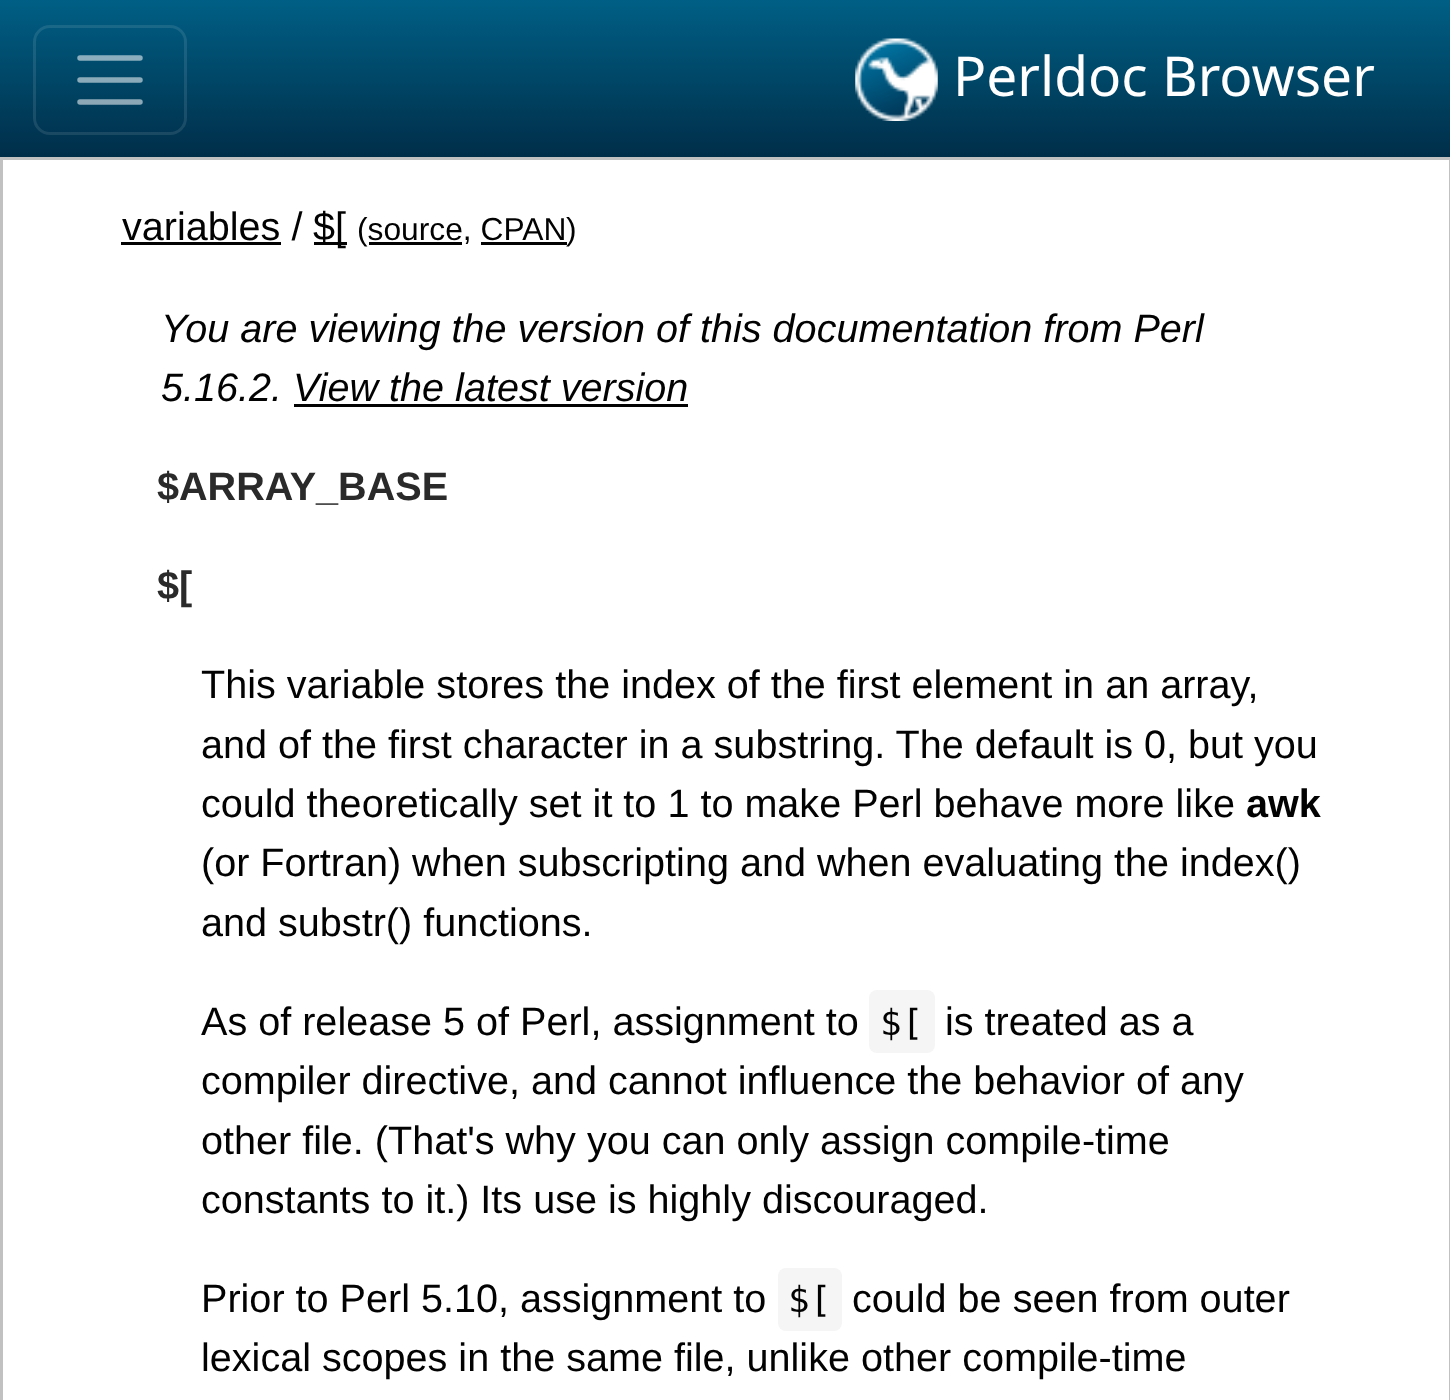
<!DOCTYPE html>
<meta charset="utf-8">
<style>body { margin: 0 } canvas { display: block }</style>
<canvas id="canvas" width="1450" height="1400"></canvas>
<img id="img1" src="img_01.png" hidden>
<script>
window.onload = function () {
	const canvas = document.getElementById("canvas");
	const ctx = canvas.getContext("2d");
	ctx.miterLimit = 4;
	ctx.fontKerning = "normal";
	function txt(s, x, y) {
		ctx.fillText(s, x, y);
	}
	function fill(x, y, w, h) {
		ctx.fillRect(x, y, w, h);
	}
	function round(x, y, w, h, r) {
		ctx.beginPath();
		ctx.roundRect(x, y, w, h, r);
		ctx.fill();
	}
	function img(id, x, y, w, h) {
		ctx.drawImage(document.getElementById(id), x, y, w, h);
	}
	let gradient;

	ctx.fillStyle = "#FFFFFF";
	fill(0, 0, 1450, 1400);
	gradient = ctx.createLinearGradient(726, 0, 726, 157);
	gradient.addColorStop(0, "#005F85");
	gradient.addColorStop(1, "#002E49");
	ctx.fillStyle = gradient;
	fill(0, 0, 1450, 157);
	ctx.beginPath();
	ctx.roundRect(34.5, 26.5, 151, 107, 15.5);
	ctx.strokeStyle = "rgba(255, 255, 255, 0.1)";
	ctx.lineWidth = 3;
	ctx.stroke();
	ctx.beginPath();
	ctx.moveTo(80, 58);
	ctx.lineTo(140, 58);
	ctx.moveTo(80, 80);
	ctx.lineTo(140, 80);
	ctx.moveTo(80, 102);
	ctx.lineTo(140, 102);
	ctx.strokeStyle = "rgba(255, 255, 255, 0.55)";
	ctx.lineWidth = 5.5;
	ctx.lineCap = "round";
	ctx.stroke();
	img("img1", 855, 38, 83, 83);
	ctx.strokeStyle = "#C1C1C1";
	ctx.lineWidth = 3;
	ctx.strokeRect(1.5, 158.5, 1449, 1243);
	ctx.fillStyle = "#020202";
	fill(121, 242, 160, 3);
	fill(314, 242, 33, 3);
	fill(369, 242, 93, 3);
	fill(481, 242, 86, 3);
	fill(294, 404, 394, 3);
	ctx.fillStyle = "#F5F5F5";
	round(869, 990, 66, 63, 8);
	round(778, 1268, 64, 63, 8);
	ctx.font = "55px Noto Sans";
	ctx.fillStyle = "#FFFFFF";
	txt("Perldoc Browser", 953, 96);
	ctx.font = "39.6px Liberation Sans";
	ctx.fillStyle = "#020202";
	txt("variables /", 122, 240);
	txt("$[", 313, 240);
	ctx.font = "31.75px Liberation Sans";
	txt("(source, CPAN", 357, 240);
	txt(")", 566, 240);
	ctx.font = "italic 39.6px Liberation Sans";
	txt("You are viewing the version of this documentation from Perl", 161, 342);
	txt("5.16.2. View the latest version", 161, 401);
	ctx.font = "bold 39.6px Liberation Sans";
	ctx.fillStyle = "#2A2A2A";
	txt("$ARRAY_BASE", 157, 500);
	txt("$[", 157, 599);
	ctx.font = "39.6px Liberation Sans";
	ctx.fillStyle = "#020202";
	txt("This variable stores the index of the first element in an array,", 201, 698);
	txt("and of the first character in a substring. The default is 0, but you", 201, 758);
	txt("could theoretically set it to 1 to make Perl behave more like", 201, 817);
	ctx.font = "bold 39.6px Liberation Sans";
	txt("awk", 1246, 817);
	ctx.font = "39.6px Liberation Sans";
	txt("(or Fortran) when subscripting and when evaluating the index()", 201, 876);
	txt("and substr() functions.", 201, 936);
	txt("As of release 5 of Perl, assignment to", 201, 1035);
	ctx.font = "36px DejaVu Sans Mono";
	txt("$[", 880, 1035);
	ctx.font = "39.6px Liberation Sans";
	txt("is treated as a", 945, 1035);
	txt("compiler directive, and cannot influence the behavior of any", 201, 1094);
	txt("other file. (That's why you can only assign compile-time", 201, 1154);
	txt("constants to it.) Its use is highly discouraged.", 201, 1213);
	txt("Prior to Perl 5.10, assignment to", 201, 1312);
	ctx.font = "36px DejaVu Sans Mono";
	txt("$[", 788, 1312);
	ctx.font = "39.6px Liberation Sans";
	txt("could be seen from outer", 852, 1312);
	txt("lexical scopes in the same file, unlike other compile-time", 201, 1371);
};
</script>
